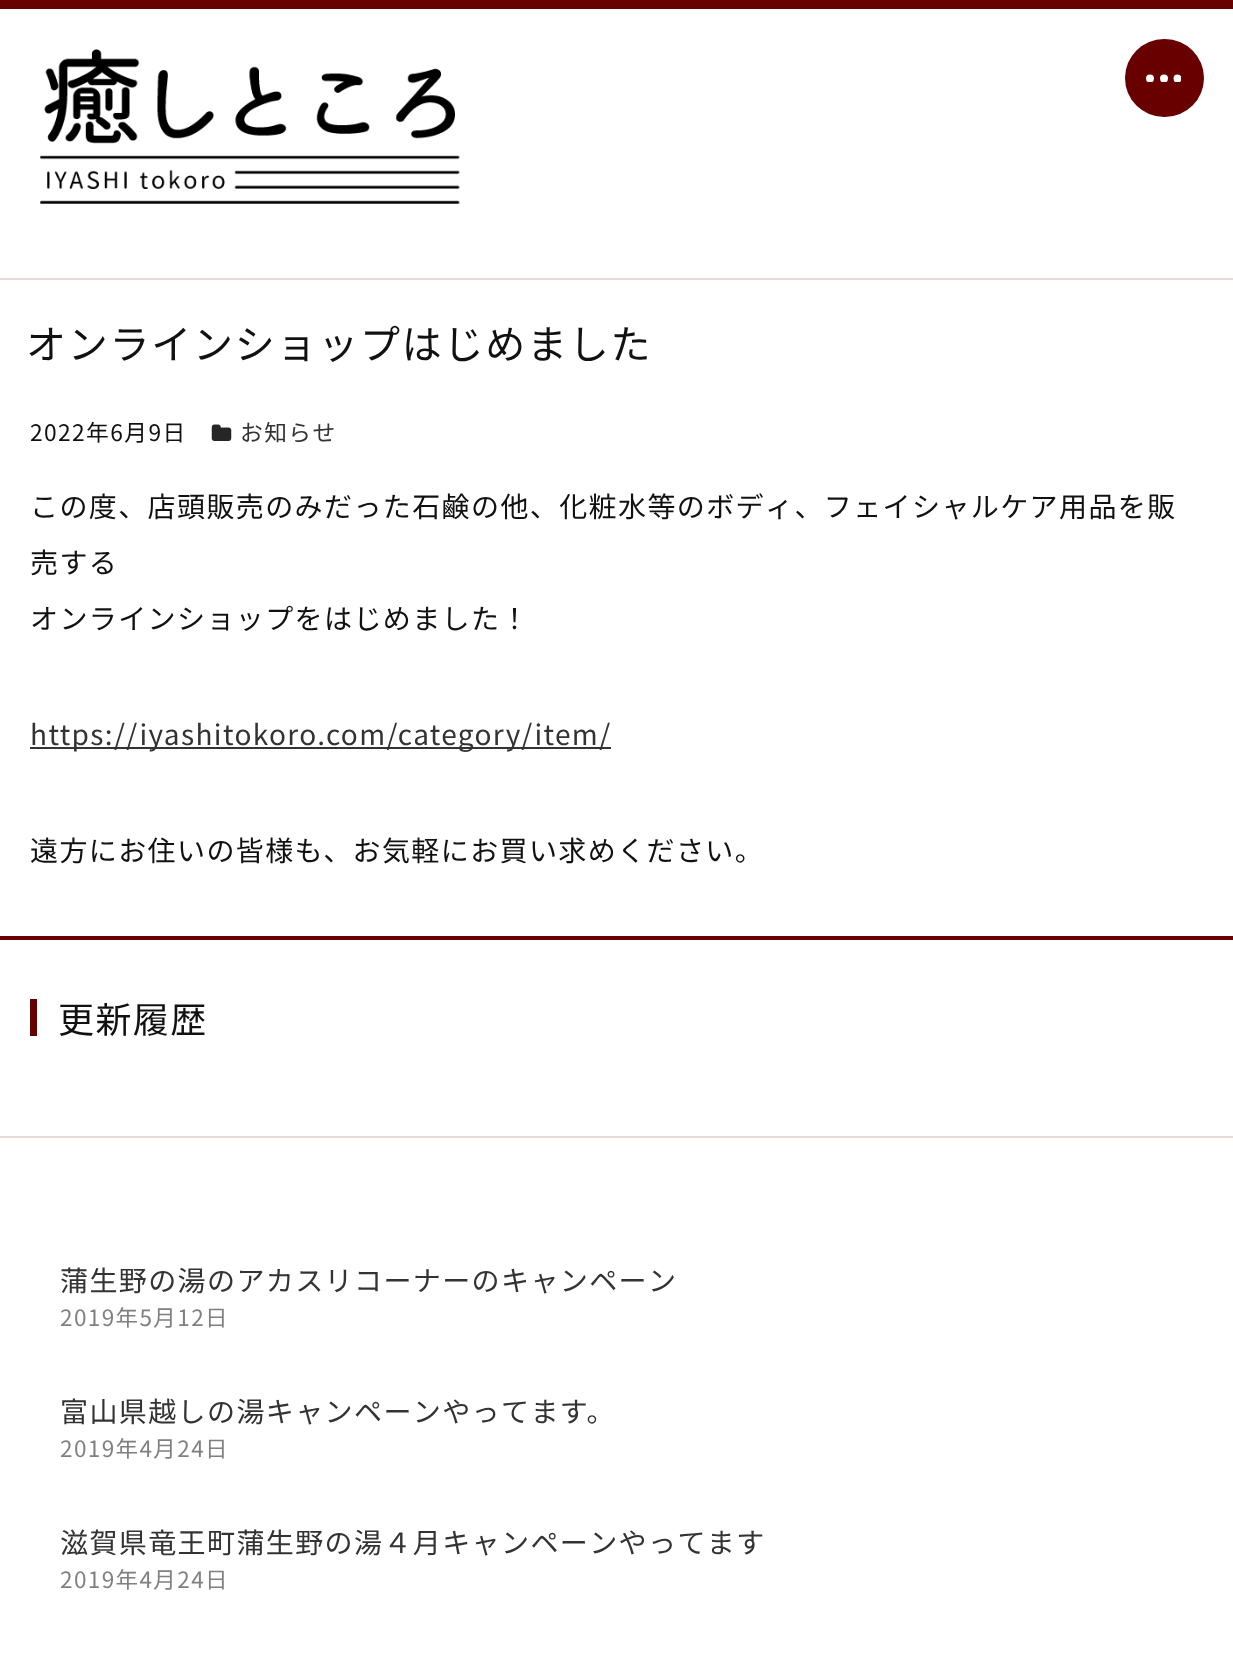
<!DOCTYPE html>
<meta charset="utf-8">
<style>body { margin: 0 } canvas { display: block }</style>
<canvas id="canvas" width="1233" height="1664"></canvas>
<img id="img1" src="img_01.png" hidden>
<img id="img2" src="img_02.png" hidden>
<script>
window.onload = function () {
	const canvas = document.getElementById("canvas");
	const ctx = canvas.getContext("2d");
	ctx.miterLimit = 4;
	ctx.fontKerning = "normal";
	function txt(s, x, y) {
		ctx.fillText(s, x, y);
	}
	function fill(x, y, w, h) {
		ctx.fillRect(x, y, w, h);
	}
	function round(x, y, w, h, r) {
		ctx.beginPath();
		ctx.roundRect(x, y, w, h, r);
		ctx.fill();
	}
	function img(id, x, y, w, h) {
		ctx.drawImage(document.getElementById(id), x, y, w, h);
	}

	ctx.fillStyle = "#FFFFFF";
	fill(0, 0, 1233, 1664);
	ctx.fillStyle = "#680000";
	fill(0, 0, 1233, 9);
	img("img1", 40, 49, 420, 155);
	round(1125, 39, 79, 78, 39);
	ctx.save();
	ctx.beginPath();
	ctx.rect(1146, 74, 35, 8);
	ctx.clip();
	ctx.fillStyle = "#FFFFFF";
	ctx.beginPath();
	ctx.arc(1150, 78.5, 4, 0, Math.PI * 2);
	ctx.fill();
	ctx.beginPath();
	ctx.arc(1164, 78.5, 4, 0, Math.PI * 2);
	ctx.fill();
	ctx.beginPath();
	ctx.arc(1177.5, 78.5, 4, 0, Math.PI * 2);
	ctx.fill();
	ctx.restore();
	ctx.fillStyle = "#E5DAD7";
	fill(0, 278, 1233, 2);
	img("img2", 211, 424, 21, 17);
	ctx.fillStyle = "#333333";
	fill(30, 747, 581, 2);
	ctx.fillStyle = "#680000";
	fill(0, 936, 1233, 4);
	ctx.fillStyle = "#E5DAD7";
	fill(0, 1136, 1233, 2);
	ctx.fillStyle = "#680000";
	fill(30, 999, 7, 37);
	ctx.letterSpacing = "1.75px";
	ctx.font = "40px Noto Sans JP";
	ctx.fillStyle = "#111111";
	txt("オンラインショップはじめました", 26, 359);
	ctx.letterSpacing = "1.4px";
	ctx.font = "22.75px Noto Sans JP";
	txt("2022年6月9日", 30, 441);
	ctx.fillStyle = "#333333";
	txt("お知らせ", 240, 441);
	ctx.font = "28px Noto Sans JP";
	ctx.fillStyle = "#111111";
	txt("この度、店頭販売のみだった石鹸の他、化粧水等のボディ、フェイシャルケア用品を販", 30, 517);
	txt("売する", 30, 573);
	txt("オンラインショップをはじめました！", 30, 629);
	ctx.fillStyle = "#333333";
	txt("https://iyashitokoro.com/category/item/", 30, 745);
	ctx.fillStyle = "#111111";
	txt("遠方にお住いの皆様も、お気軽にお買い求めください。", 30, 861);
	ctx.font = "36px Noto Sans JP";
	txt("更新履歴", 58, 1033);
	ctx.font = "28px Noto Sans JP";
	ctx.fillStyle = "#333333";
	txt("蒲生野の湯のアカスリコーナーのキャンペーン", 60, 1291);
	ctx.font = "22.5px Noto Sans JP";
	ctx.fillStyle = "#808080";
	txt("2019年5月12日", 60, 1326);
	ctx.font = "28px Noto Sans JP";
	ctx.fillStyle = "#333333";
	txt("富山県越しの湯キャンペーンやってます。", 60, 1422);
	ctx.font = "22.5px Noto Sans JP";
	ctx.fillStyle = "#808080";
	txt("2019年4月24日", 60, 1457);
	ctx.font = "28px Noto Sans JP";
	ctx.fillStyle = "#333333";
	txt("滋賀県竜王町蒲生野の湯４月キャンペーンやってます", 60, 1553);
	ctx.font = "22.5px Noto Sans JP";
	ctx.fillStyle = "#808080";
	txt("2019年4月24日", 60, 1588);
};
</script>
